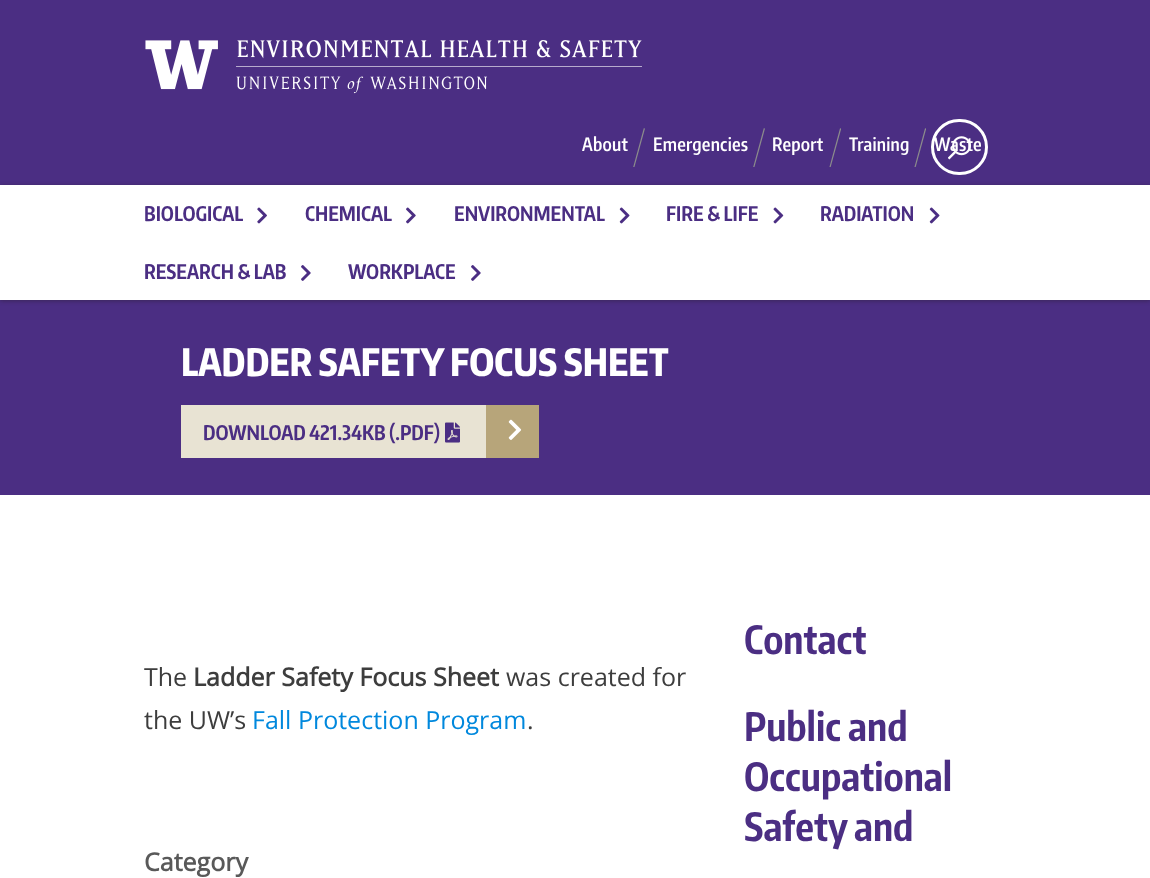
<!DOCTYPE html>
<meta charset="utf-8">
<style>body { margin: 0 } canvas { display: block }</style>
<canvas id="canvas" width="1150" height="878"></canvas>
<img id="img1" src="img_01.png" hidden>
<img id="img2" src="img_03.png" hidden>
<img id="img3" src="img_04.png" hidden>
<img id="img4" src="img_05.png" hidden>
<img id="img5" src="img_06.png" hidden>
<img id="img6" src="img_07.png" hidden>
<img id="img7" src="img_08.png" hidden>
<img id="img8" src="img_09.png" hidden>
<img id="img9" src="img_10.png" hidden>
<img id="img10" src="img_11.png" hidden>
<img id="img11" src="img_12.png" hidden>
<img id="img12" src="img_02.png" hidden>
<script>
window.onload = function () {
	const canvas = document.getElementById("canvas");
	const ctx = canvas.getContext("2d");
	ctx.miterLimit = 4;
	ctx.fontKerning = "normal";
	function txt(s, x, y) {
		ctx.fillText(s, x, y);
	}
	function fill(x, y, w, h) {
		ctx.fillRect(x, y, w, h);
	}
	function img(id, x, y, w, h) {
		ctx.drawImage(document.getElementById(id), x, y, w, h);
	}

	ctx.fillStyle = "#FFFFFF";
	fill(0, 0, 1150, 878);
	ctx.fillStyle = "#4B2E83";
	fill(0, 0, 1150, 185);
	img("img1", 145, 40, 497, 54);
	ctx.beginPath();
	ctx.roundRect(932.5, 120.5, 54, 53, 26.5);
	ctx.strokeStyle = "#FFFFFF";
	ctx.lineWidth = 3;
	ctx.stroke();
	img("img2", 633, 128, 12, 39);
	img("img3", 753, 128, 12, 39);
	img("img4", 829, 128, 12, 39);
	img("img4", 914, 128, 12, 39);
	fill(0, 300, 1150, 195);
	ctx.fillStyle = "rgba(34, 25, 25, 0.4)";
	ctx.filter = "blur(2px)";
	ctx.beginPath();
	ctx.rect(0, 186, 1150, 115);
	ctx.fill();
	ctx.filter = "none";
	ctx.fillStyle = "#FFFFFF";
	fill(0, 185, 1150, 115);
	img("img5", 257, 207, 10, 17);
	img("img6", 406, 207, 10, 17);
	img("img7", 619, 207, 11, 17);
	img("img8", 773, 207, 11, 17);
	img("img7", 929, 207, 11, 17);
	img("img9", 301, 265, 10, 16);
	img("img9", 471, 265, 10, 16);
	ctx.fillStyle = "#E8E3D3";
	fill(181, 405, 305, 53);
	ctx.fillStyle = "#B7A57A";
	fill(486, 405, 53, 53);
	img("img10", 445, 422, 15, 21);
	img("img11", 508, 419, 14, 21);
	ctx.letterSpacing = "0.25px";
	ctx.font = "600 18.25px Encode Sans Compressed";
	ctx.fillStyle = "#FFFFFF";
	txt("About", 582, 151);
	txt("Emergencies", 653, 151);
	txt("Report", 772, 151);
	txt("Training", 849, 151);
	txt("Waste", 934, 151);
	img("img12", 948, 136, 23, 24);
	ctx.letterSpacing = "0px";
	ctx.font = "bold 20px Encode Sans Compressed";
	ctx.fillStyle = "#4B2E83";
	txt("BIOLOGICAL", 144, 221);
	txt("CHEMICAL", 305, 221);
	txt("ENVIRONMENTAL", 454, 221);
	txt("FIRE & LIFE", 666, 221);
	txt("RADIATION", 820, 221);
	txt("RESEARCH & LAB", 144, 279);
	txt("WORKPLACE", 348, 279);
	ctx.font = "800 37.5px Encode Sans Compressed";
	ctx.fillStyle = "#FFFFFF";
	txt("LADDER SAFETY FOCUS SHEET", 181, 376);
	ctx.font = "bold 20px Encode Sans Compressed";
	ctx.fillStyle = "#4B2E83";
	txt("DOWNLOAD 421.34KB (.PDF)", 203, 440);
	ctx.font = "25px Open Sans";
	ctx.fillStyle = "#3D3D3D";
	txt("The", 144, 686);
	ctx.font = "bold 25px Open Sans";
	txt("Ladder Safety Focus Sheet", 193, 686);
	ctx.font = "25px Open Sans";
	txt("was created for", 506, 686);
	txt("the UW’s", 144, 729);
	ctx.fillStyle = "#0088DD";
	txt("Fall Protection Program", 252, 729);
	ctx.fillStyle = "#3D3D3D";
	txt(".", 527, 729);
	ctx.font = "bold 25px Open Sans";
	ctx.fillStyle = "#595959";
	txt("Category", 144, 871);
	ctx.font = "bold 38.75px Encode Sans Compressed";
	ctx.fillStyle = "#4B2E83";
	txt("Contact", 744, 654);
	txt("Public and", 744, 741);
	txt("Occupational", 744, 791);
	txt("Safety and", 744, 841);
};
</script>
